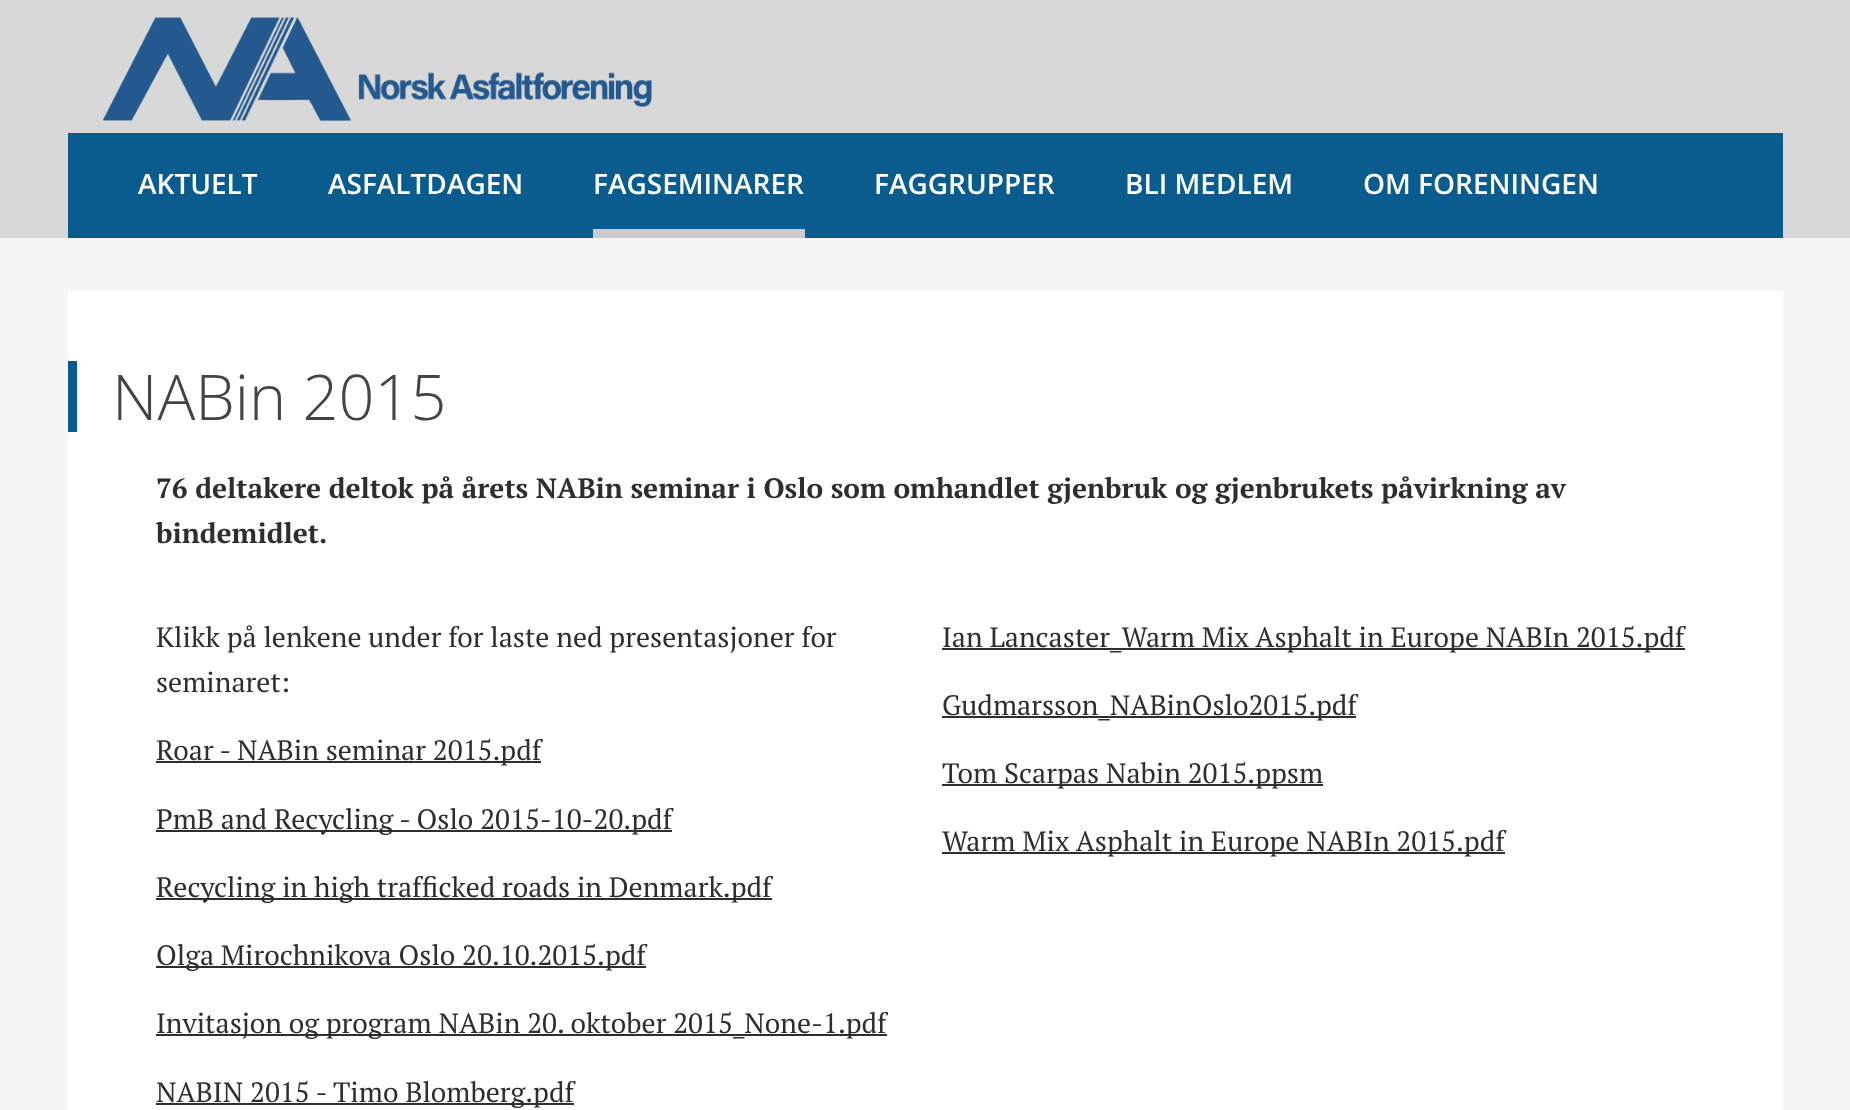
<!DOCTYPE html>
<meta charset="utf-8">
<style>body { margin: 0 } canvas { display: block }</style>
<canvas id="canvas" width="1850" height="1110"></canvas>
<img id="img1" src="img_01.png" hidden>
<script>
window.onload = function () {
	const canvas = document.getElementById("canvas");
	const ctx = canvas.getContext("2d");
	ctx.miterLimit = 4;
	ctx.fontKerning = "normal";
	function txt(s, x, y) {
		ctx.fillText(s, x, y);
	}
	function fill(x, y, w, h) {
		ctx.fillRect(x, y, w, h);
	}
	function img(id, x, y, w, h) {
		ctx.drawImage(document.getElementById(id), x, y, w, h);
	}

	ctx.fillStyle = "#F5F5F5";
	fill(0, 0, 1850, 1110);
	ctx.fillStyle = "#D8D8D8";
	fill(0, 0, 1850, 238);
	img("img1", 103, 17, 549, 104);
	ctx.fillStyle = "#0A5C8F";
	fill(68, 133, 1715, 105);
	ctx.fillStyle = "#CCCCCC";
	fill(593, 229, 212, 9);
	ctx.fillStyle = "#FFFFFF";
	fill(68, 291, 1715, 819);
	ctx.fillStyle = "#0A5C8F";
	fill(68, 361, 9, 71);
	ctx.fillStyle = "#2E2E2E";
	fill(942, 648, 743, 2);
	fill(942, 716, 414, 2);
	fill(156, 761, 385, 2);
	fill(942, 784, 381, 2);
	fill(156, 830, 516, 2);
	fill(942, 852, 563, 2);
	fill(156, 898, 616, 2);
	fill(156, 966, 490, 2);
	fill(156, 1034, 731, 2);
	fill(156, 1103, 418, 2);
	ctx.font = "600 28px Open Sans";
	ctx.fillStyle = "#FFFFFF";
	txt("AKTUELT", 138, 194);
	txt("ASFALTDAGEN", 328, 194);
	txt("FAGSEMINARER", 593, 194);
	txt("FAGGRUPPER", 874, 194);
	txt("BLI MEDLEM", 1125, 194);
	txt("OM FORENINGEN", 1363, 194);
	ctx.font = "300 63px Open Sans";
	ctx.fillStyle = "#444444";
	txt("NABin 2015", 112, 420);
	ctx.font = "bold 28px PT Serif";
	ctx.fillStyle = "#2E2E2E";
	txt("76 deltakere deltok på årets NABin seminar i Oslo som omhandlet gjenbruk og gjenbrukets påvirkning av", 156, 498);
	txt("bindemidlet.", 156, 543);
	ctx.font = "28px PT Serif";
	txt("Klikk på lenkene under for laste ned presentasjoner for", 156, 647);
	txt("seminaret:", 156, 692);
	txt("Ian Lancaster_Warm Mix Asphalt in Europe NABIn 2015.pdf", 942, 647);
	txt("Gudmarsson_NABinOslo2015.pdf", 942, 715);
	txt("Roar - NABin seminar 2015.pdf", 156, 760);
	txt("Tom Scarpas Nabin 2015.ppsm", 942, 783);
	txt("PmB and Recycling - Oslo 2015-10-20.pdf", 156, 829);
	txt("Warm Mix Asphalt in Europe NABIn 2015.pdf", 942, 851);
	txt("Recycling in high trafficked roads in Denmark.pdf", 156, 897);
	txt("Olga Mirochnikova Oslo 20.10.2015.pdf", 156, 965);
	txt("Invitasjon og program NABin 20. oktober 2015_None-1.pdf", 156, 1033);
	txt("NABIN 2015 - Timo Blomberg.pdf", 156, 1102);
};
</script>
